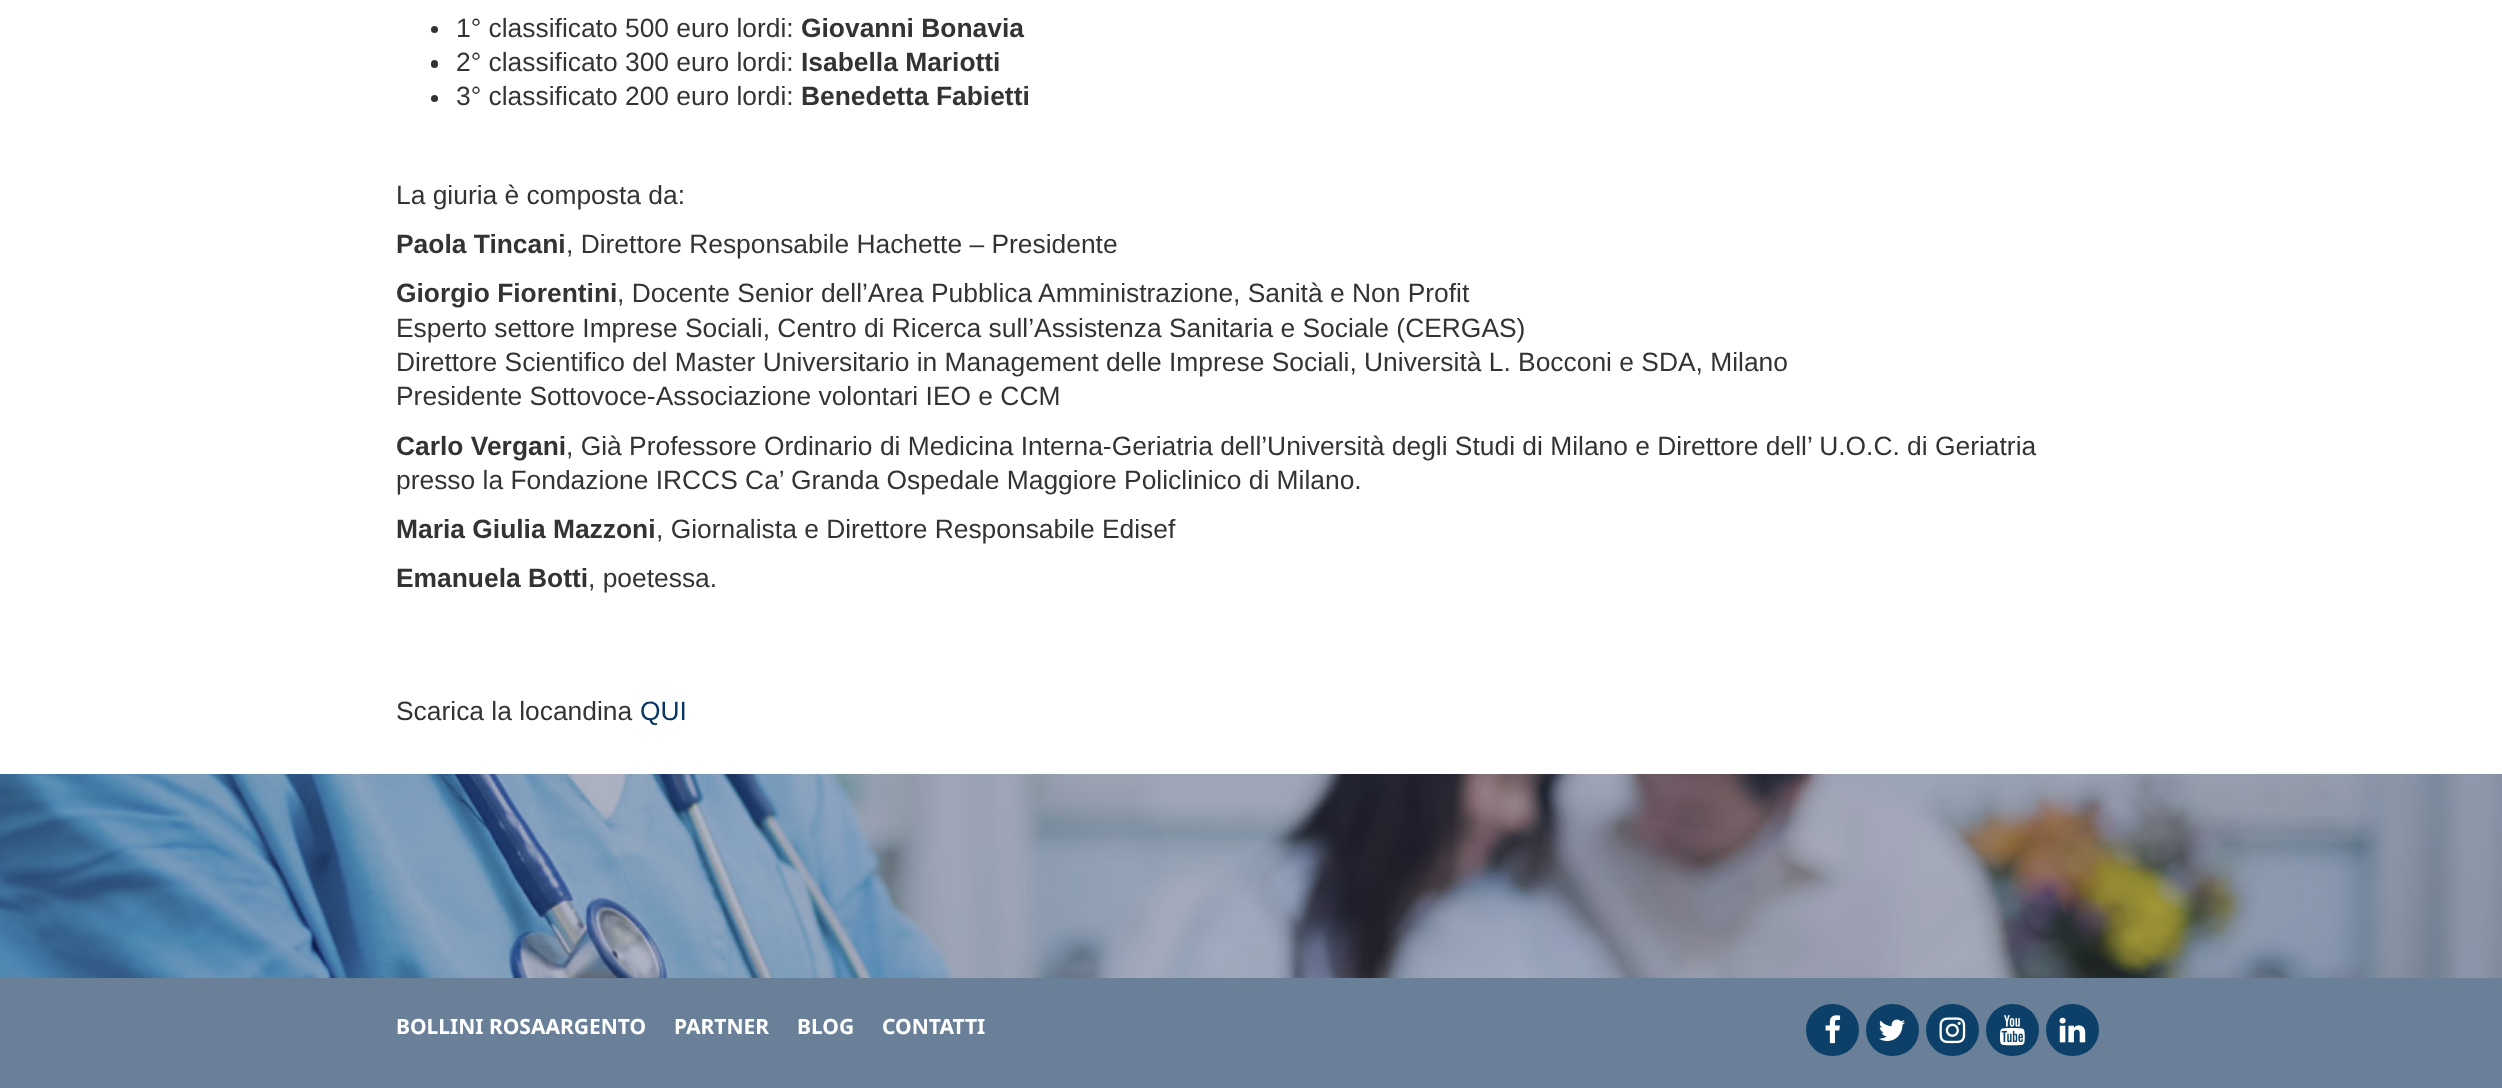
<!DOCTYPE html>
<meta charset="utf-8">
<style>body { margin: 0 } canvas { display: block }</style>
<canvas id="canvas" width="2502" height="1088"></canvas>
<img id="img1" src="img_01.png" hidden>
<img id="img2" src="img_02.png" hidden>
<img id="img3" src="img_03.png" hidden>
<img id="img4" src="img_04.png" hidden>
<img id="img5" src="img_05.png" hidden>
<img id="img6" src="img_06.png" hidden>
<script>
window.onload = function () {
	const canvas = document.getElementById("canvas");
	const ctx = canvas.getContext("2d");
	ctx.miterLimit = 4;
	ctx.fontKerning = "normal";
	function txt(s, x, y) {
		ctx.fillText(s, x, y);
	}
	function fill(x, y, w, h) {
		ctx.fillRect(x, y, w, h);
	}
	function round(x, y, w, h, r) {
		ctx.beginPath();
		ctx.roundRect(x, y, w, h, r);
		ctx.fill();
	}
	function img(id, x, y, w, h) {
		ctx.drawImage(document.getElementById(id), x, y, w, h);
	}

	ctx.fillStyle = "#FFFFFF";
	fill(0, 0, 2502, 1088);
	ctx.fillStyle = "#333333";
	ctx.beginPath();
	ctx.arc(434.5, 29.5, 3.5, 0, Math.PI * 2);
	ctx.fill();
	round(431, 60, 7, 8, 3.5);
	ctx.beginPath();
	ctx.arc(434.5, 98.5, 3.5, 0, Math.PI * 2);
	ctx.fill();
	img("img1", 0, 774, 2502, 204);
	ctx.fillStyle = "#698098";
	fill(0, 978, 2502, 110);
	ctx.fillStyle = "#0C4068";
	round(1806, 1004, 53, 52, 26);
	img("img2", 1825, 1015, 16, 29);
	round(1866, 1004, 53, 52, 26);
	img("img3", 1879, 1019, 26, 22);
	round(1926, 1004, 53, 52, 26);
	img("img4", 1939, 1017, 27, 27);
	round(1986, 1004, 53, 52, 26);
	img("img5", 1999, 1015, 26, 31);
	round(2046, 1004, 53, 52, 26);
	img("img6", 2059, 1017, 27, 26);
	ctx.font = "26.4px Liberation Sans";
	ctx.fillStyle = "#333333";
	txt("1° classificato 500 euro lordi:", 456, 37);
	ctx.font = "bold 26.4px Liberation Sans";
	txt("Giovanni Bonavia", 801, 37);
	ctx.font = "26.4px Liberation Sans";
	txt("2° classificato 300 euro lordi:", 456, 71);
	ctx.font = "bold 26.4px Liberation Sans";
	txt("Isabella Mariotti", 801, 71);
	ctx.font = "26.4px Liberation Sans";
	txt("3° classificato 200 euro lordi:", 456, 105);
	ctx.font = "bold 26.4px Liberation Sans";
	txt("Benedetta Fabietti", 801, 105);
	ctx.font = "26.4px Liberation Sans";
	txt("La giuria è composta da:", 396, 204);
	ctx.font = "bold 26.4px Liberation Sans";
	txt("Paola Tincani", 396, 253);
	ctx.font = "26.4px Liberation Sans";
	txt(", Direttore Responsabile Hachette – Presidente", 566, 253);
	ctx.font = "bold 26.4px Liberation Sans";
	txt("Giorgio Fiorentini", 396, 302);
	ctx.font = "26.4px Liberation Sans";
	txt(", Docente Senior dell’Area Pubblica Amministrazione, Sanità e Non Profit", 617, 302);
	txt("Esperto settore Imprese Sociali, Centro di Ricerca sull’Assistenza Sanitaria e Sociale (CERGAS)", 396, 337);
	txt("Direttore Scientifico del Master Universitario in Management delle Imprese Sociali, Università L. Bocconi e SDA, Milano", 396, 371);
	txt("Presidente Sottovoce-Associazione volontari IEO e CCM", 396, 405);
	ctx.font = "bold 26.4px Liberation Sans";
	txt("Carlo Vergani", 396, 455);
	ctx.font = "26.4px Liberation Sans";
	txt(", Già Professore Ordinario di Medicina Interna-Geriatria dell’Università degli Studi di Milano e Direttore dell’ U.O.C. di Geriatria", 566, 455);
	txt("presso la Fondazione IRCCS Ca’ Granda Ospedale Maggiore Policlinico di Milano.", 396, 489);
	ctx.font = "bold 26.4px Liberation Sans";
	txt("Maria Giulia Mazzoni", 396, 538);
	ctx.font = "26.4px Liberation Sans";
	txt(", Giornalista e Direttore Responsabile Edisef", 656, 538);
	ctx.font = "bold 26.4px Liberation Sans";
	txt("Emanuela Botti", 396, 587);
	ctx.font = "26.4px Liberation Sans";
	txt(", poetessa.", 588, 587);
	txt("Scarica la locandina", 396, 720);
	ctx.fillStyle = "#0A3664";
	txt("QUI", 640, 720);
	ctx.font = "bold 21px Noto Sans";
	ctx.fillStyle = "#FFFFFF";
	txt("BOLLINI ROSAARGENTO", 396, 1034);
	txt("PARTNER", 674, 1034);
	txt("BLOG", 797, 1034);
	txt("CONTATTI", 882, 1034);
};
</script>
